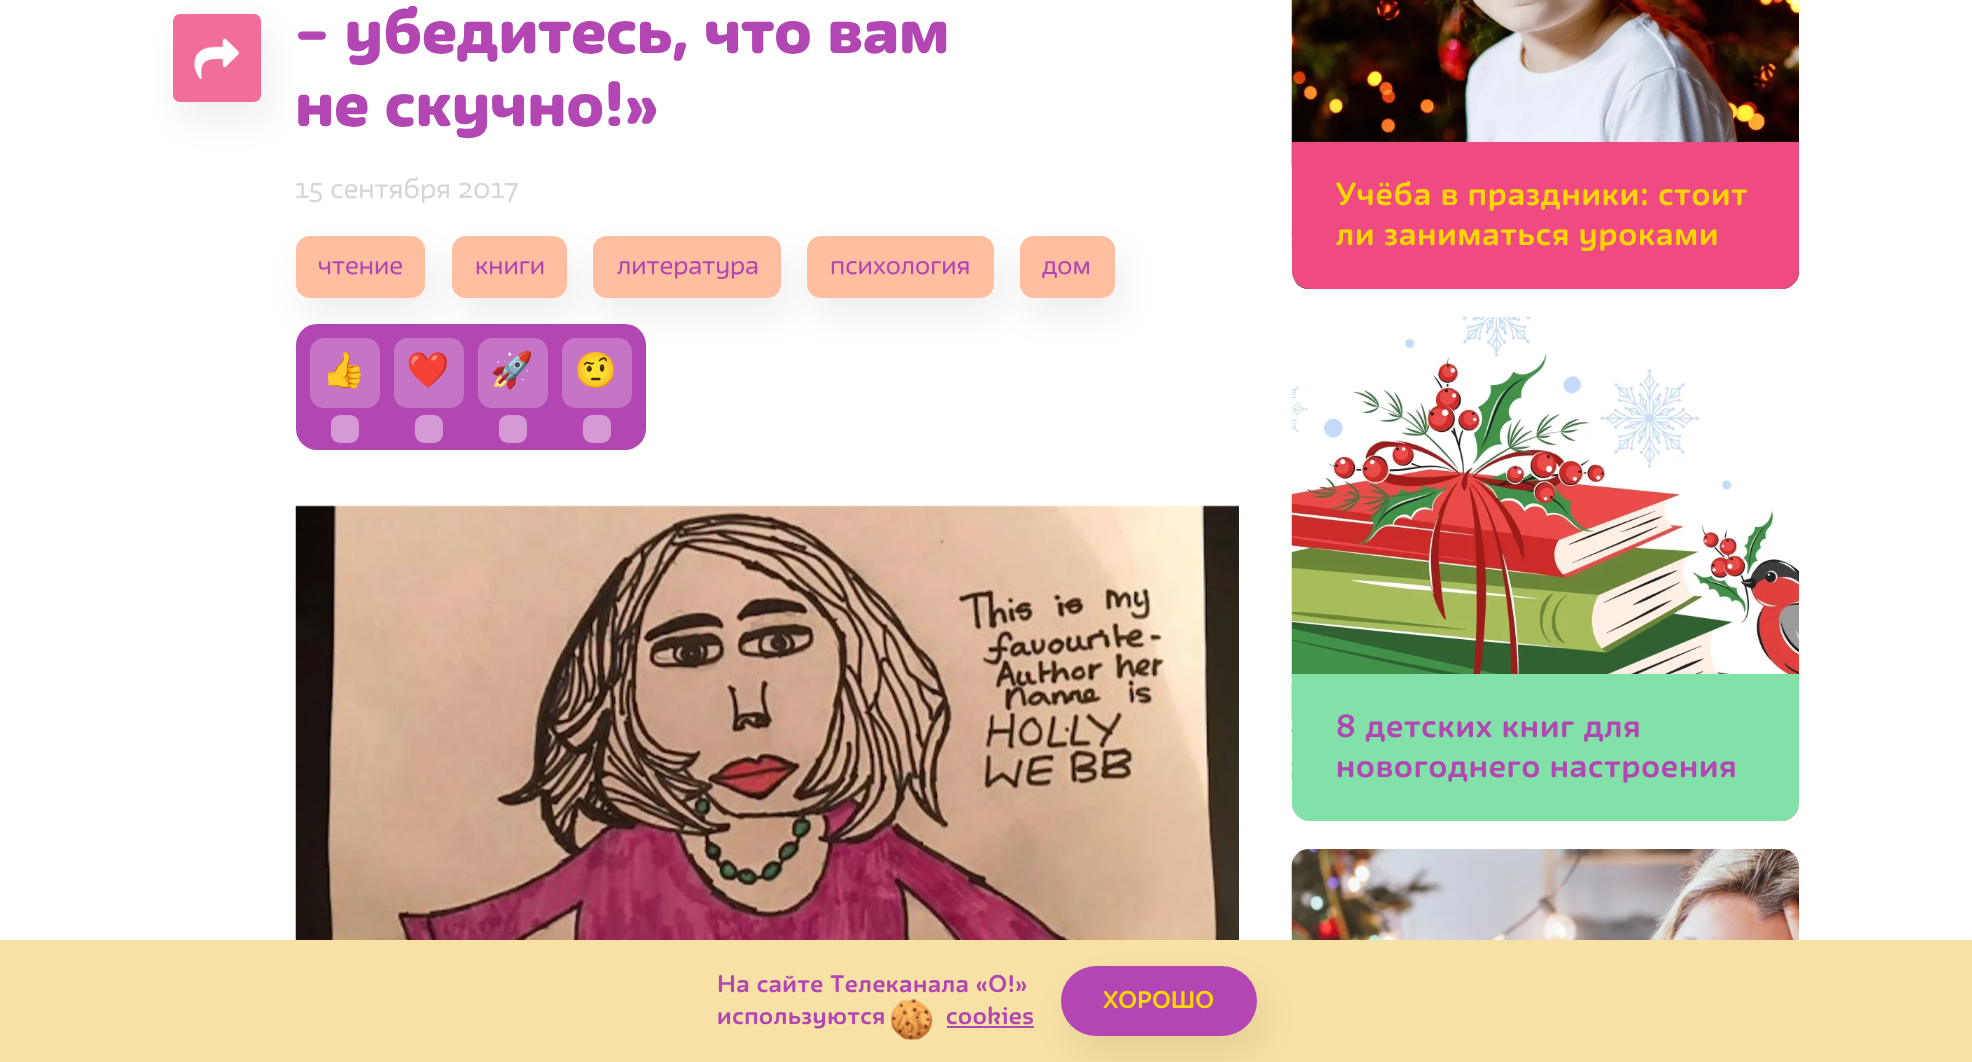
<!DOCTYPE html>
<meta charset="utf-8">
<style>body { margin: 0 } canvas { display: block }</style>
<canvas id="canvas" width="1972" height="1062"></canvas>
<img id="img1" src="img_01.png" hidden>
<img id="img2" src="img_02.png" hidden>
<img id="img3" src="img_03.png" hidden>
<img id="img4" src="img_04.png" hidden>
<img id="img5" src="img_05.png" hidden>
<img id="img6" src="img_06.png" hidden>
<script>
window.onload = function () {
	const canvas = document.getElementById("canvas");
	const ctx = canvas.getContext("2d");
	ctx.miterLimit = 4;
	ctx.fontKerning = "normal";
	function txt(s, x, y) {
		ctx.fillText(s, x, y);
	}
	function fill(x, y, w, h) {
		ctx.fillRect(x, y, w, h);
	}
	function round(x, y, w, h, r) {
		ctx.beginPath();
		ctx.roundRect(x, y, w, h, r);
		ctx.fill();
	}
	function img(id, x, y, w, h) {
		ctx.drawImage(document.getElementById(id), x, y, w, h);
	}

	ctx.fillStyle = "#FFFFFF";
	fill(0, 0, 1972, 1062);
	ctx.save();
	ctx.beginPath();
	ctx.moveTo(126, 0);
	ctx.lineTo(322, 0);
	ctx.lineTo(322, 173);
	ctx.lineTo(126, 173);
	ctx.closePath();
	ctx.moveTo(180, 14);
	ctx.lineTo(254, 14);
	ctx.bezierCurveTo(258, 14, 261, 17, 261, 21);
	ctx.lineTo(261, 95);
	ctx.bezierCurveTo(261, 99, 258, 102, 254, 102);
	ctx.lineTo(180, 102);
	ctx.bezierCurveTo(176, 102, 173, 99, 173, 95);
	ctx.lineTo(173, 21);
	ctx.bezierCurveTo(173, 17, 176, 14, 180, 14);
	ctx.closePath();
	ctx.clip("evenodd");
	ctx.fillStyle = "rgba(0, 0, 0, 0.07)";
	ctx.filter = "blur(17.5px)";
	ctx.beginPath();
	ctx.roundRect(180, 32, 88, 87, 7);
	ctx.fill();
	ctx.filter = "none";
	ctx.restore();
	ctx.fillStyle = "rgba(239, 74, 129, 0.8)";
	round(173, 14, 88, 88, 7);
	img("img1", 194, 38, 45, 41);
	ctx.fillStyle = "rgba(0, 0, 0, 0.07)";
	ctx.filter = "blur(17.5px)";
	ctx.beginPath();
	ctx.roundRect(303, 254, 129, 61, 14);
	ctx.fill();
	ctx.filter = "none";
	ctx.fillStyle = "#FFBE9F";
	ctx.beginPath();
	ctx.roundRect(297, 237, 127, 60, 13);
	ctx.fill();
	ctx.strokeStyle = "#FFBE9F";
	ctx.lineWidth = 2;
	ctx.stroke();
	ctx.fillStyle = "rgba(0, 0, 0, 0.07)";
	ctx.filter = "blur(17.5px)";
	ctx.beginPath();
	ctx.roundRect(459, 254, 115, 61, 14);
	ctx.fill();
	ctx.filter = "none";
	ctx.fillStyle = "#FFBE9F";
	ctx.beginPath();
	ctx.roundRect(453, 237, 113, 60, 13);
	ctx.fill();
	ctx.stroke();
	ctx.fillStyle = "rgba(0, 0, 0, 0.07)";
	ctx.filter = "blur(17.5px)";
	ctx.beginPath();
	ctx.roundRect(600, 254, 188, 61, 14);
	ctx.fill();
	ctx.filter = "none";
	ctx.fillStyle = "#FFBE9F";
	ctx.beginPath();
	ctx.roundRect(594, 237, 186, 60, 13);
	ctx.fill();
	ctx.stroke();
	ctx.fillStyle = "rgba(0, 0, 0, 0.07)";
	ctx.filter = "blur(17.5px)";
	ctx.beginPath();
	ctx.roundRect(814, 254, 187, 61, 14);
	ctx.fill();
	ctx.filter = "none";
	ctx.fillStyle = "#FFBE9F";
	ctx.beginPath();
	ctx.roundRect(808, 237, 185, 60, 13);
	ctx.fill();
	ctx.stroke();
	ctx.fillStyle = "rgba(0, 0, 0, 0.07)";
	ctx.filter = "blur(17.5px)";
	ctx.beginPath();
	ctx.roundRect(1027, 254, 95, 61, 14);
	ctx.fill();
	ctx.filter = "none";
	ctx.fillStyle = "#FFBE9F";
	ctx.beginPath();
	ctx.roundRect(1021, 237, 93, 60, 13);
	ctx.fill();
	ctx.stroke();
	ctx.fillStyle = "#B246B3";
	round(296, 324, 350, 126, 21);
	ctx.fillStyle = "#C574C6";
	round(310, 338, 70, 70, 14);
	ctx.fillStyle = "#D599D5";
	round(331, 415, 28, 28, 9);
	ctx.fillStyle = "#C574C6";
	round(394, 338, 70, 70, 14);
	ctx.fillStyle = "#D599D5";
	round(415, 415, 28, 28, 9);
	ctx.fillStyle = "#C574C6";
	round(478, 338, 70, 70, 14);
	ctx.fillStyle = "#D599D5";
	round(499, 415, 28, 28, 9);
	ctx.fillStyle = "#C574C6";
	round(562, 338, 70, 70, 14);
	ctx.fillStyle = "#D599D5";
	round(583, 415, 28, 28, 9);
	img("img2", 295, 505, 944, 435);
	img("img3", 1291, 0, 508, 289);
	ctx.fillStyle = "#EF4A81";
	ctx.beginPath();
	ctx.roundRect(1292, 142, 507, 147, [0, 0, 18, 18]);
	ctx.fill();
	img("img4", 1291, 317, 508, 504);
	ctx.fillStyle = "#82E1A8";
	ctx.beginPath();
	ctx.roundRect(1292, 674, 507, 147, [0, 0, 18, 18]);
	ctx.fill();
	img("img5", 1291, 849, 508, 91);
	ctx.fillStyle = "#F7E1A4";
	fill(0, 940, 1972, 122);
	img("img6", 890, 998, 43, 42);
	ctx.fillStyle = "#B246B3";
	fill(947, 1026, 87, 2);
	ctx.fillStyle = "rgba(0, 0, 0, 0.07)";
	ctx.filter = "blur(17.5px)";
	ctx.beginPath();
	ctx.roundRect(1068, 984, 196, 70, 35);
	ctx.fill();
	ctx.filter = "none";
	ctx.fillStyle = "#B346B3";
	round(1061, 966, 196, 70, 35);
	ctx.font = "900 56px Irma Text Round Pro";
	ctx.fillStyle = "#B246B3";
	txt("– убедитесь, что вам", 295, 53);
	txt("не скучно!»", 295, 126);
	ctx.font = "24.5px Irma Text Round Pro";
	ctx.fillStyle = "#D6D6D6";
	txt("15 сентября 2017", 295, 198);
	ctx.font = "22.75px Irma Text Round Pro";
	ctx.fillStyle = "#B246B3";
	txt("чтение", 318, 274);
	txt("книги", 475, 274);
	txt("литература", 617, 274);
	txt("психология", 830, 274);
	txt("дом", 1042, 274);
	ctx.font = "35px Noto Color Emoji";
	ctx.fillStyle = "#000000";
	txt("👍", 322, 382);
	txt("❤️", 406, 382);
	txt("🚀", 490, 382);
	txt("🤨", 574, 382);
	ctx.letterSpacing = "0.9px";
	ctx.font = "bold 28px Irma Text Round Pro";
	ctx.fillStyle = "#FFD700";
	txt("Учёба в праздники: стоит", 1336, 205);
	txt("ли заниматься уроками", 1336, 245);
	ctx.fillStyle = "#B246B3";
	txt("8 детских книг для", 1336, 737);
	txt("новогоднего настроения", 1336, 777);
	ctx.letterSpacing = "0.6px";
	ctx.font = "bold 21px Irma Text Round Pro";
	txt("На сайте Телеканала «О!»", 717, 992);
	txt("используются", 717, 1024);
	txt("cookies", 946, 1024);
	ctx.letterSpacing = "0px";
	ctx.fillStyle = "#FFD700";
	txt("ХОРОШО", 1103, 1008);
};
</script>
